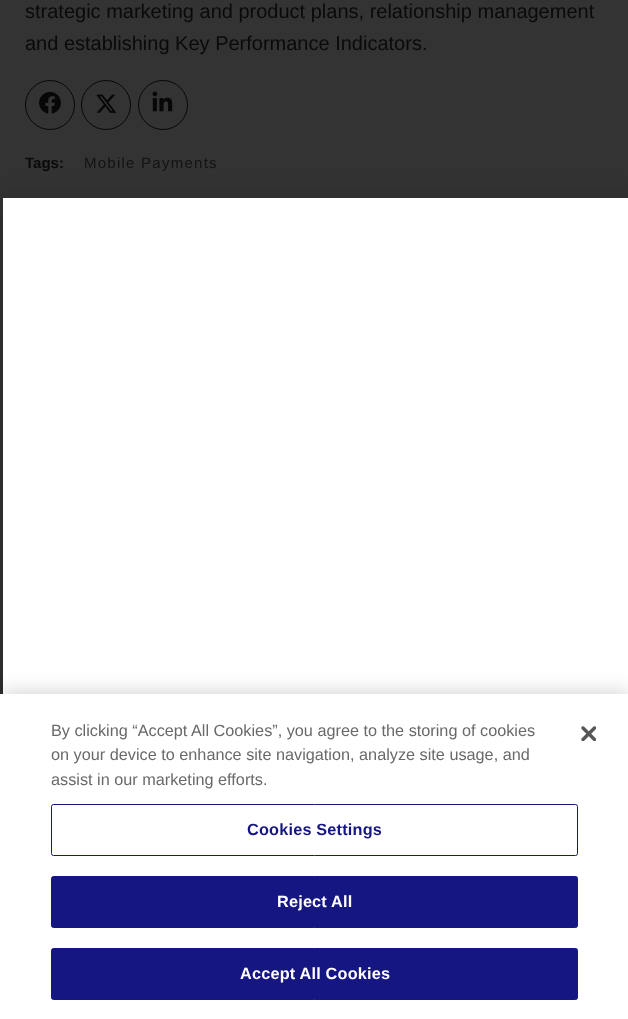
<!DOCTYPE html>
<meta charset="utf-8">
<style>body { margin: 0 } canvas { display: block }</style>
<canvas id="canvas" width="628" height="1019"></canvas>
<img id="img1" src="img_01.png" hidden>
<img id="img2" src="img_02.png" hidden>
<img id="img3" src="img_03.png" hidden>
<img id="img4" src="img_04.png" hidden>
<script>
window.onload = function () {
	const canvas = document.getElementById("canvas");
	const ctx = canvas.getContext("2d");
	ctx.miterLimit = 4;
	ctx.fontKerning = "normal";
	function txt(s, x, y) {
		ctx.fillText(s, x, y);
	}
	function fill(x, y, w, h) {
		ctx.fillRect(x, y, w, h);
	}
	function img(id, x, y, w, h) {
		ctx.drawImage(document.getElementById(id), x, y, w, h);
	}

	ctx.fillStyle = "#333333";
	fill(0, 0, 628, 1019);
	ctx.beginPath();
	ctx.arc(50, 105, 24.5, 0, Math.PI * 2);
	ctx.strokeStyle = "#070707";
	ctx.stroke();
	img("img1", 39, 91, 22, 23);
	ctx.beginPath();
	ctx.arc(106, 105, 24.5, 0, Math.PI * 2);
	ctx.stroke();
	img("img2", 96, 94, 21, 19);
	ctx.beginPath();
	ctx.arc(163, 105, 24.5, 0, Math.PI * 2);
	ctx.stroke();
	img("img3", 152, 91, 21, 21);
	ctx.fillStyle = "rgba(0, 0, 0, 0.2)";
	ctx.filter = "blur(14.5px)";
	ctx.beginPath();
	ctx.rect(1, 204, 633, 632);
	ctx.fill();
	ctx.filter = "none";
	ctx.fillStyle = "#FFFFFF";
	fill(3, 198, 625, 496);
	ctx.fillStyle = "rgba(0, 0, 0, 0.2)";
	ctx.filter = "blur(11px)";
	ctx.beginPath();
	ctx.rect(0, 694, 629, 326);
	ctx.fill();
	ctx.filter = "none";
	ctx.fillStyle = "#FFFFFF";
	fill(0, 694, 628, 325);
	ctx.beginPath();
	ctx.roundRect(51.5, 804.5, 526, 51, 2);
	ctx.strokeStyle = "#161682";
	ctx.stroke();
	ctx.fillStyle = "#161682";
	ctx.beginPath();
	ctx.roundRect(51.5, 876.5, 526, 51, 2);
	ctx.fill();
	ctx.stroke();
	ctx.beginPath();
	ctx.roundRect(51.5, 948.5, 526, 51, 2);
	ctx.fill();
	ctx.stroke();
	img("img4", 581, 726, 15, 15);
	ctx.font = "20px Liberation Sans";
	ctx.fillStyle = "#0A0A0A";
	txt("strategic marketing and product plans, relationship management", 25, 18);
	txt("and establishing Key Performance Indicators.", 25, 50);
	ctx.font = "bold 15px Liberation Sans";
	txt("Tags:", 25, 168);
	ctx.letterSpacing = "1.25px";
	ctx.font = "15px Liberation Sans";
	ctx.fillStyle = "#131313";
	txt("Mobile Payments", 84, 168);
	ctx.letterSpacing = "0px";
	ctx.font = "16.25px Liberation Sans";
	ctx.fillStyle = "#696969";
	txt("By clicking “Accept All Cookies”, you agree to the storing of cookies", 51, 736);
	txt("on your device to enhance site navigation, analyze site usage, and", 51, 760);
	txt("assist in our marketing efforts.", 51, 785);
	ctx.letterSpacing = "0.2px";
	ctx.font = "bold 16.25px Liberation Sans";
	ctx.fillStyle = "#161682";
	txt("Cookies Settings", 247, 835);
	ctx.fillStyle = "#FFFFFF";
	txt("Reject All", 277, 907);
	txt("Accept All Cookies", 240, 979);
};
</script>
